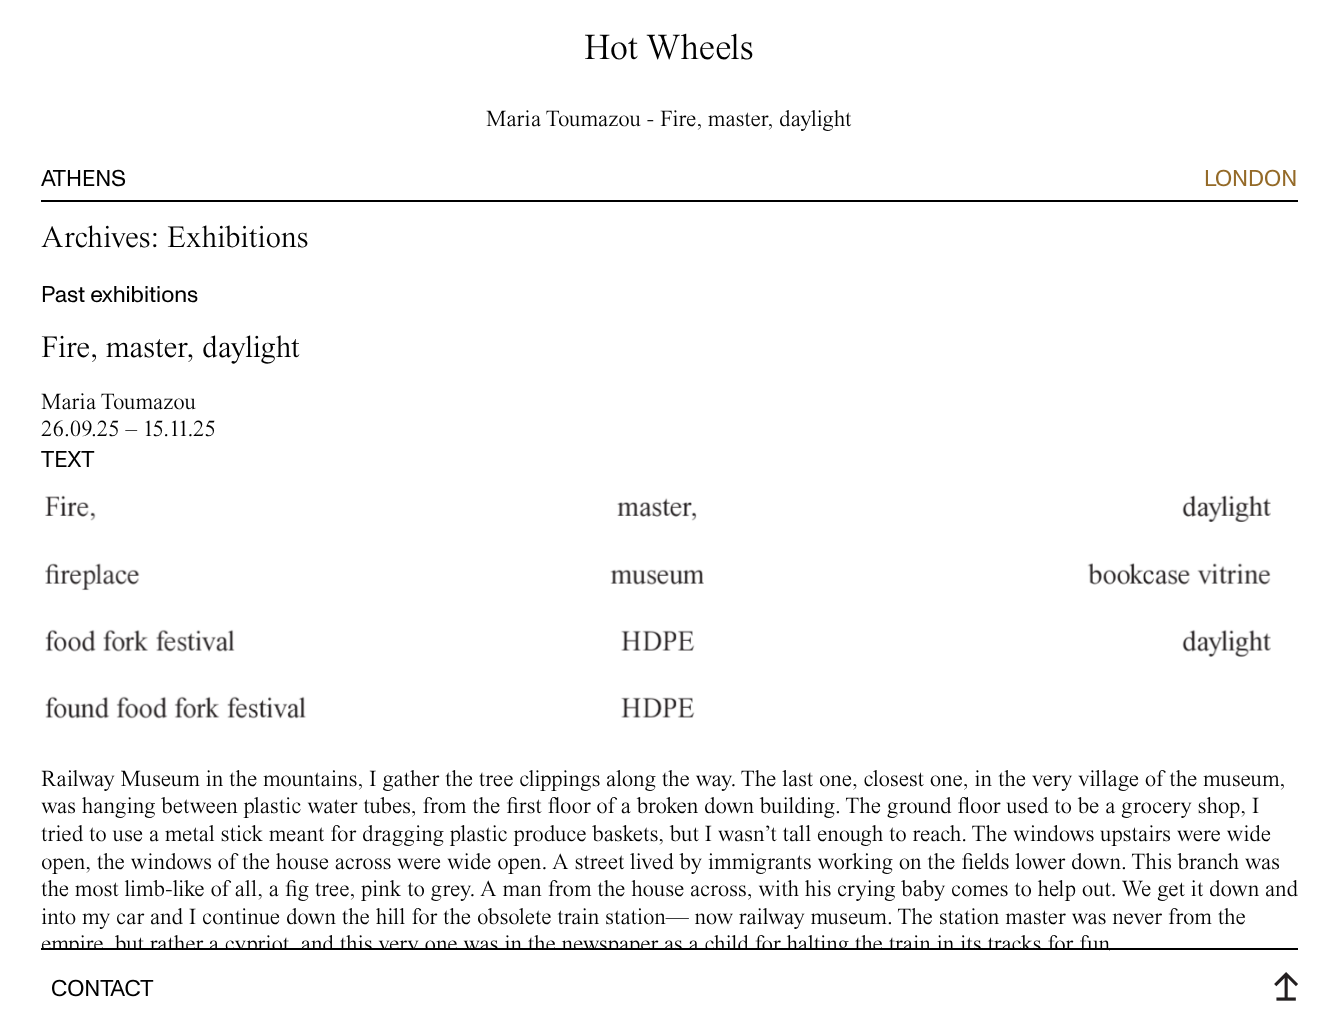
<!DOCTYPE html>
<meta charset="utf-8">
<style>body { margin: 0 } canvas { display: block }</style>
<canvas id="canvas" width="1337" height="1024"></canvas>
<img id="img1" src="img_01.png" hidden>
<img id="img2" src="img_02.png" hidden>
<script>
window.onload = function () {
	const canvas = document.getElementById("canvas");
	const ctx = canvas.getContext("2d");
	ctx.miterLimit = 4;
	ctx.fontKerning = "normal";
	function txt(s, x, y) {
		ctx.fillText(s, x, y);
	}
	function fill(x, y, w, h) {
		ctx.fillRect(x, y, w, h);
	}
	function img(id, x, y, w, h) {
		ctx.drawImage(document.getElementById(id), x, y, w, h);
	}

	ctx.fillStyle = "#FFFFFF";
	fill(0, 0, 1337, 1024);
	ctx.fillStyle = "#000000";
	fill(41, 200, 1257, 2);
	img("img1", 45, 495, 1226, 224);
	fill(41, 948, 1257, 2);
	img("img2", 1274, 972, 24, 29);
	ctx.font = "300 36.5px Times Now";
	txt("Hot Wheels", 584, 59);
	ctx.font = "300 22.95px Times Now";
	txt("Maria Toumazou - Fire, master, daylight", 486, 126);
	ctx.font = "22.95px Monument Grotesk";
	txt("ATHENS", 41, 186);
	ctx.fillStyle = "#946A28";
	txt("LONDON", 1204, 186);
	ctx.font = "300 31px Times Now";
	ctx.fillStyle = "#000000";
	txt("Archives: Exhibitions", 41, 247);
	ctx.font = "22.95px Monument Grotesk";
	txt("Past exhibitions", 41, 302);
	ctx.font = "300 31px Times Now";
	txt("Fire, master, daylight", 41, 357);
	ctx.font = "300 22.95px Times Now";
	txt("Maria Toumazou", 41, 409);
	txt("26.09.25 – 15.11.25", 41, 436);
	ctx.font = "22.95px Monument Grotesk";
	txt("TEXT", 41, 467);
	ctx.font = "300 22.95px Times Now";
	txt("Railway Museum in the mountains, I gather the tree clippings along the way. The last one, closest one, in the very village of the museum,", 41, 786);
	txt("was hanging between plastic water tubes, from the first floor of a broken down building. The ground floor used to be a grocery shop, I", 41, 813);
	txt("tried to use a metal stick meant for dragging plastic produce baskets, but I wasn’t tall enough to reach. The windows upstairs were wide", 41, 841);
	txt("open, the windows of the house across were wide open. A street lived by immigrants working on the fields lower down. This branch was", 41, 869);
	txt("the most limb-like of all, a fig tree, pink to grey. A man from the house across, with his crying baby comes to help out. We get it down and", 41, 896);
	txt("into my car and I continue down the hill for the obsolete train station— now railway museum. The station master was never from the", 41, 924);
	txt("empire, but rather a cypriot, and this very one was in the newspaper as a child for halting the train in its tracks for fun", 41, 951);
	ctx.fillStyle = "#FFFFFF";
	fill(42, 950, 1067, 6);
	ctx.font = "22.95px Monument Grotesk";
	ctx.fillStyle = "#000000";
	txt("CONTACT", 51, 996);
};
</script>
